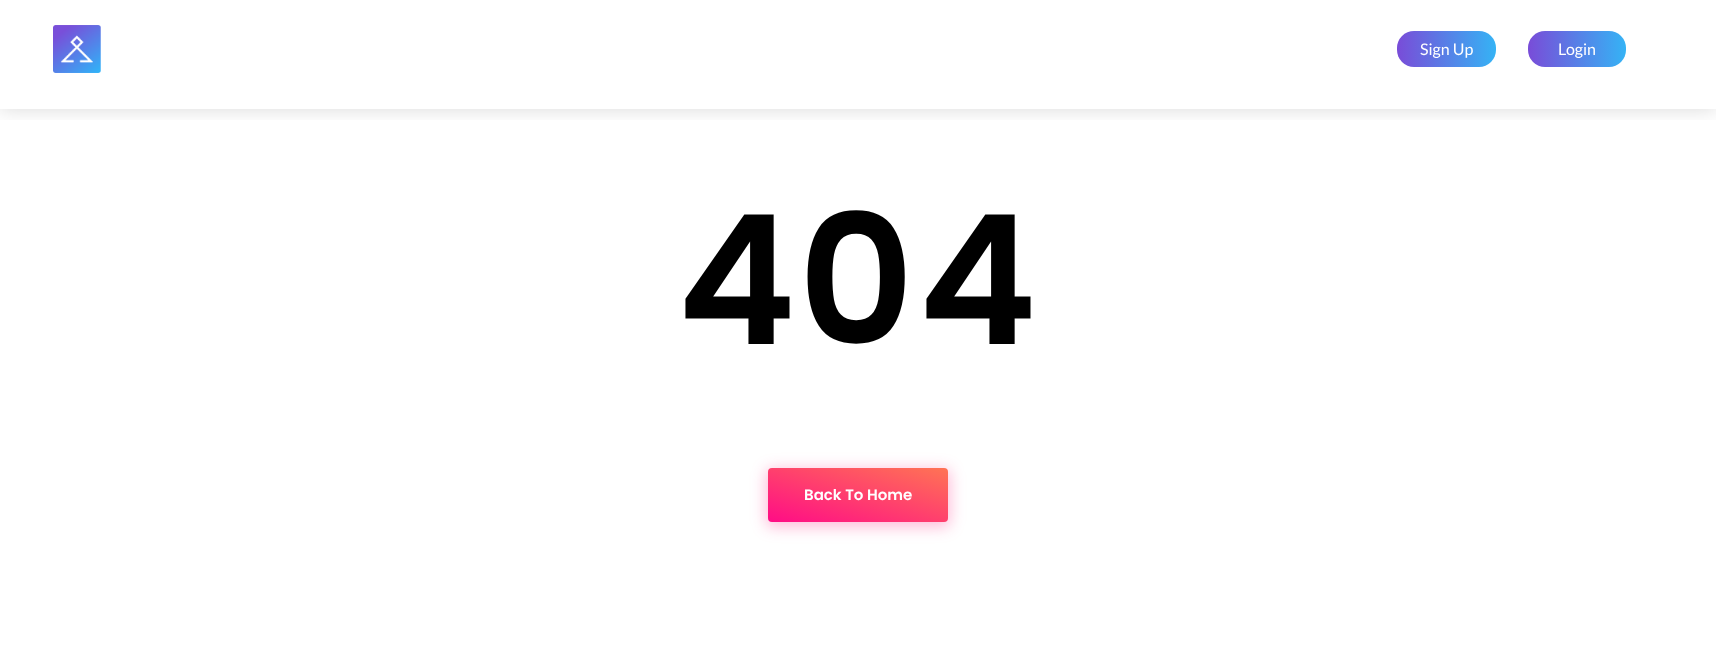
<!DOCTYPE html>
<meta charset="utf-8">
<style>body { margin: 0 } canvas { display: block }</style>
<canvas id="canvas" width="1716" height="652"></canvas>
<img id="img1" src="img_01.png" hidden>
<script>
window.onload = function () {
	const canvas = document.getElementById("canvas");
	const ctx = canvas.getContext("2d");
	ctx.miterLimit = 4;
	ctx.fontKerning = "normal";
	function txt(s, x, y) {
		ctx.fillText(s, x, y);
	}
	function fill(x, y, w, h) {
		ctx.fillRect(x, y, w, h);
	}
	function round(x, y, w, h, r) {
		ctx.beginPath();
		ctx.roundRect(x, y, w, h, r);
		ctx.fill();
	}
	function img(id, x, y, w, h) {
		ctx.drawImage(document.getElementById(id), x, y, w, h);
	}
	let gradient;

	ctx.fillStyle = "#FFFFFF";
	fill(0, 0, 1716, 652);
	ctx.save();
	ctx.beginPath();
	ctx.rect(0, 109, 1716, 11);
	ctx.clip();
	ctx.fillStyle = "rgba(0, 0, 0, 0.15)";
	ctx.filter = "blur(10px)";
	ctx.beginPath();
	ctx.rect(0, 0, 1716, 109);
	ctx.fill();
	ctx.filter = "none";
	ctx.restore();
	img("img1", 53, 25, 48, 48);
	gradient = ctx.createLinearGradient(1397, 49, 1496, 49);
	gradient.addColorStop(0, "#794CD8");
	gradient.addColorStop(1, "#35B3F5");
	ctx.fillStyle = gradient;
	round(1397, 31, 99, 36, 17);
	gradient = ctx.createLinearGradient(1528, 49, 1626, 49);
	gradient.addColorStop(0, "#794CD8");
	gradient.addColorStop(1, "#35B3F5");
	ctx.fillStyle = gradient;
	round(1528, 31, 98, 36, 17);
	ctx.fillStyle = "rgba(255, 28, 125, 0.3)";
	ctx.filter = "blur(7.5px)";
	ctx.beginPath();
	ctx.roundRect(766, 469, 184, 58, 6);
	ctx.fill();
	ctx.filter = "none";
	gradient = ctx.createLinearGradient(843, 545, 873, 445);
	gradient.addColorStop(0, "#FF0C86");
	gradient.addColorStop(1, "#FF7454");
	ctx.fillStyle = gradient;
	round(768, 468, 180, 54, 4);
	ctx.font = "16px Lato";
	ctx.fillStyle = "#FFFFFF";
	txt("Sign Up", 1420, 55);
	txt("Login", 1558, 55);
	ctx.letterSpacing = "5px";
	ctx.font = "600 180px Poppins";
	ctx.fillStyle = "#000000";
	txt("4", 677, 344);
	txt("0", 798, 344);
	txt("4", 918, 344);
	ctx.letterSpacing = "0px";
	ctx.font = "600 15px Poppins";
	ctx.fillStyle = "#FFFFFF";
	txt("Back To Home", 804, 500);
};
</script>
